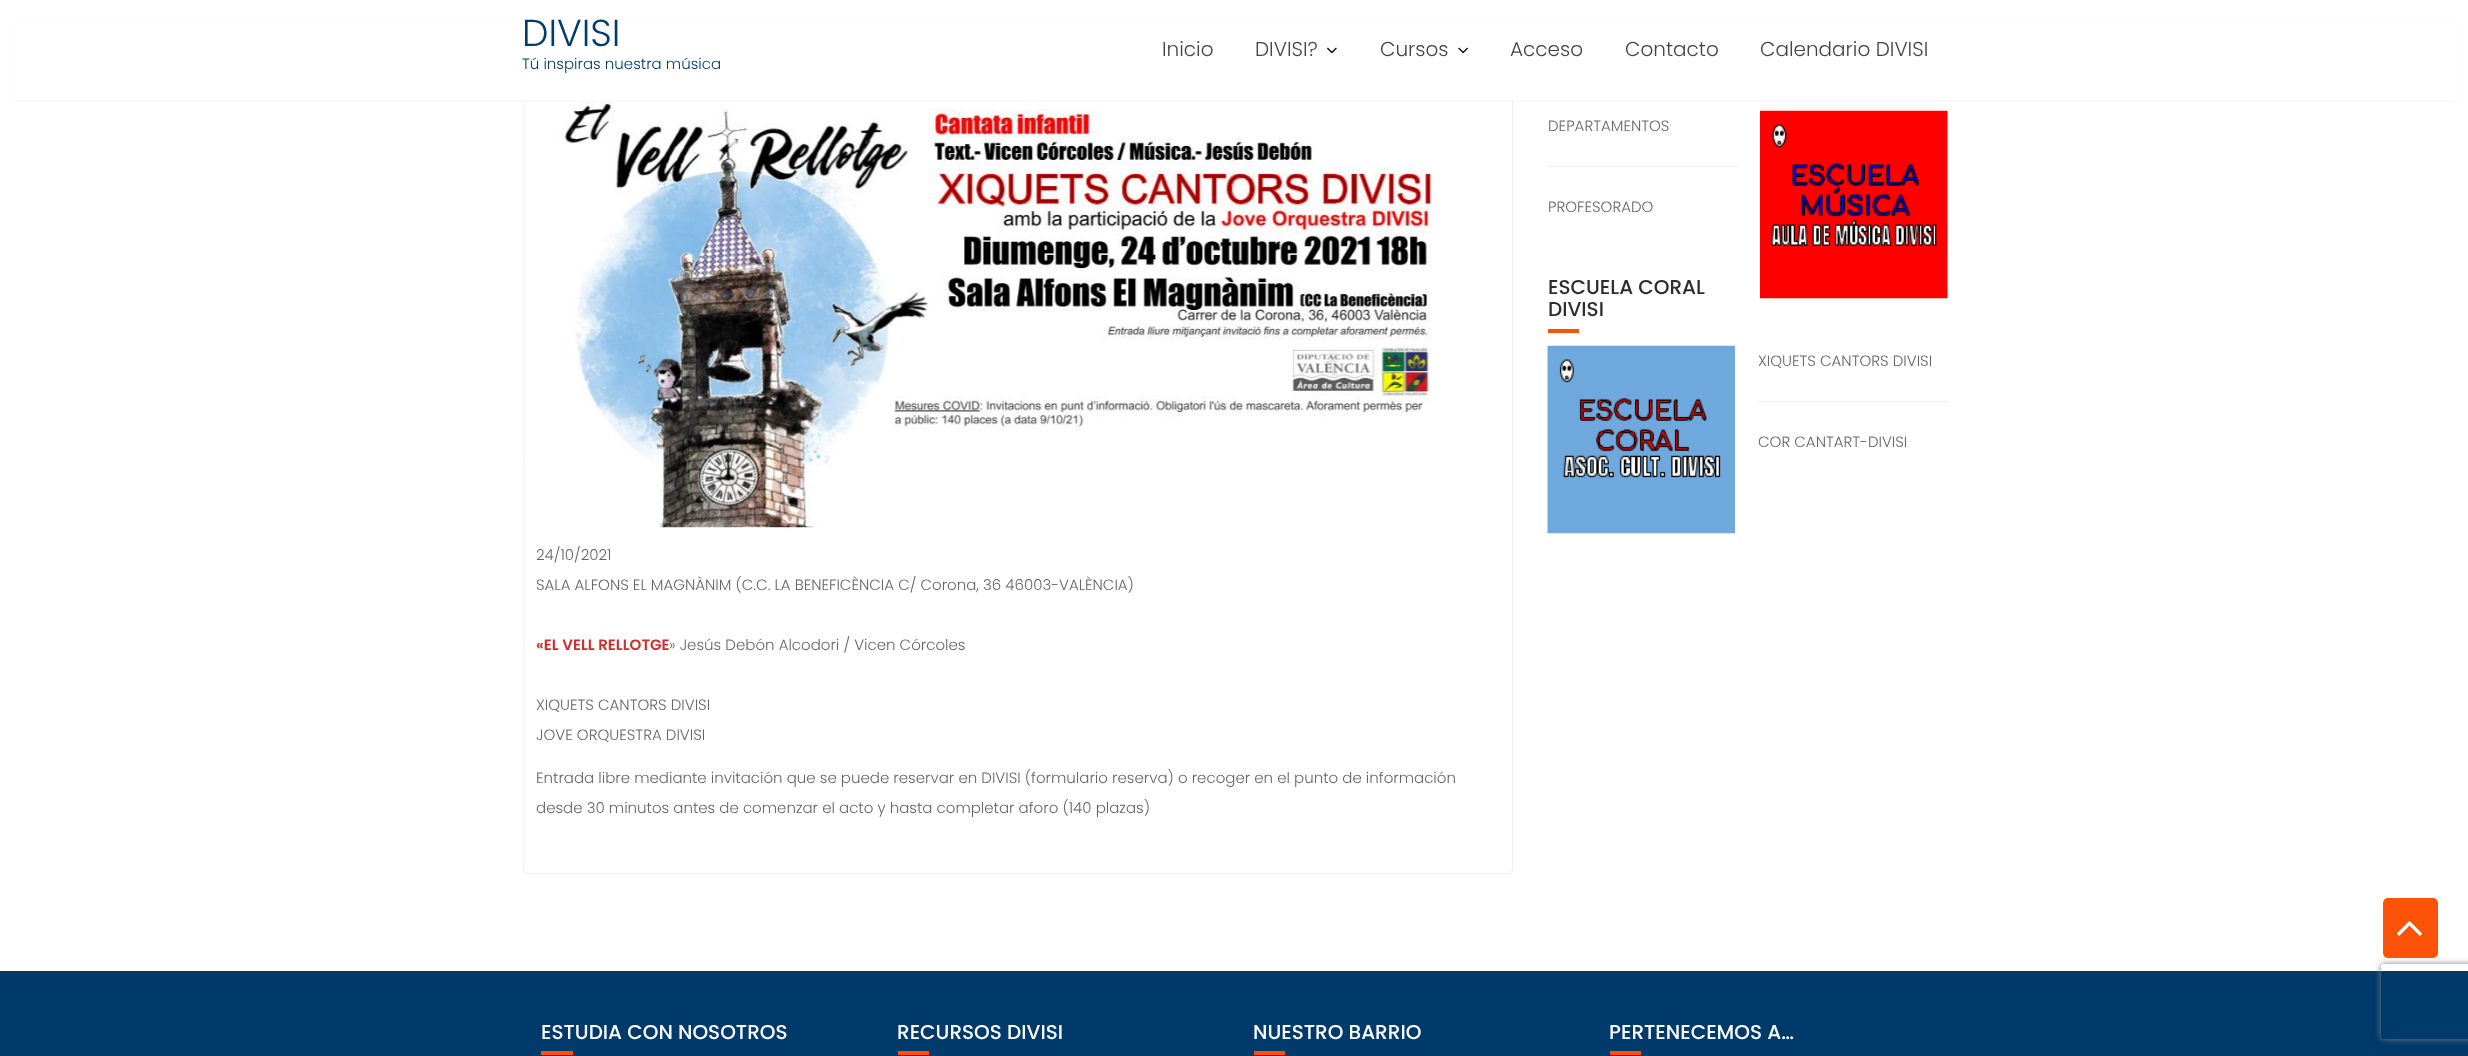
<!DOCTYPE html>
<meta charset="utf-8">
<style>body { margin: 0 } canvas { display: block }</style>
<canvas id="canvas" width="2468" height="1056"></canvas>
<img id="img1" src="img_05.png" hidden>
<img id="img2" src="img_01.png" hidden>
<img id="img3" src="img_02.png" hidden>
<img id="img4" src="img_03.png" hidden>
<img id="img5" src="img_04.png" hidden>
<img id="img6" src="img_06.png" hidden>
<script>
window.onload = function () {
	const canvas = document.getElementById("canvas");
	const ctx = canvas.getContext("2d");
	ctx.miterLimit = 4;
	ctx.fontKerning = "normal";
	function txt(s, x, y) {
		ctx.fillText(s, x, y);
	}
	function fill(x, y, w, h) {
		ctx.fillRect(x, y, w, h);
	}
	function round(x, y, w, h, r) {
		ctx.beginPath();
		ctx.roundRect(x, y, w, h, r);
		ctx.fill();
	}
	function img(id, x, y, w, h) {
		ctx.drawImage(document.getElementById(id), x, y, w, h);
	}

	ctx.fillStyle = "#FFFFFF";
	fill(0, 0, 2468, 1056);
	ctx.beginPath();
	ctx.roundRect(523.5, 39.5, 989, 834, 4.5);
	ctx.strokeStyle = "#EEEEEE";
	ctx.stroke();
	img("img1", 523, 100, 989, 433);
	ctx.fillStyle = "rgba(238, 238, 238, 0.9)";
	ctx.filter = "blur(2.5px)";
	ctx.beginPath();
	ctx.rect(13, 25, 2443, 75);
	ctx.fill();
	ctx.filter = "none";
	ctx.fillStyle = "#FFFFFF";
	fill(11, 23, 2447, 77);
	img("img2", 1327, 47, 10, 7);
	img("img3", 1458, 47, 10, 7);
	img("img4", 1760, 110, 188, 189);
	ctx.fillStyle = "#EEEEEE";
	fill(1548, 166, 190, 1);
	ctx.fillStyle = "#FD5308";
	fill(1548, 329, 31, 4);
	img("img5", 1547, 345, 188, 189);
	ctx.fillStyle = "#EEEEEE";
	fill(1758, 401, 190, 1);
	ctx.fillStyle = "#003A6A";
	fill(0, 971, 2468, 85);
	ctx.save();
	ctx.beginPath();
	ctx.moveTo(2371, 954);
	ctx.lineTo(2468, 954);
	ctx.lineTo(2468, 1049);
	ctx.lineTo(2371, 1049);
	ctx.closePath();
	ctx.moveTo(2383.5, 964);
	ctx.lineTo(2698.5, 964);
	ctx.bezierCurveTo(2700, 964, 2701, 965, 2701, 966.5);
	ctx.lineTo(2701, 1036.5);
	ctx.bezierCurveTo(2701, 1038, 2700, 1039, 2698.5, 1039);
	ctx.lineTo(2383.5, 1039);
	ctx.bezierCurveTo(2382, 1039, 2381, 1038, 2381, 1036.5);
	ctx.lineTo(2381, 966.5);
	ctx.bezierCurveTo(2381, 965, 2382, 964, 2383.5, 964);
	ctx.closePath();
	ctx.clip("evenodd");
	ctx.fillStyle = "#808080";
	ctx.filter = "blur(3px)";
	ctx.beginPath();
	ctx.roundRect(2381, 964, 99, 75, 2.5);
	ctx.fill();
	ctx.filter = "none";
	ctx.restore();
	ctx.fillStyle = "#FD5308";
	round(2383, 898, 55, 60, 5);
	img("img6", 2397, 921, 25, 15);
	fill(541, 1051, 32, 4);
	fill(898, 1051, 31, 4);
	fill(1254, 1051, 31, 4);
	fill(1610, 1051, 31, 4);
	ctx.font = "300 37.5px Poppins";
	ctx.fillStyle = "#003A6A";
	txt("DIVISI", 522, 46);
	ctx.font = "300 15px Poppins";
	txt("Tú inspiras nuestra música", 522, 69);
	ctx.font = "300 20px Poppins";
	ctx.fillStyle = "#444444";
	txt("Inicio", 1162, 56);
	txt("DIVISI?", 1255, 56);
	txt("Cursos", 1380, 56);
	txt("Acceso", 1510, 56);
	txt("Contacto", 1625, 56);
	txt("Calendario DIVISI", 1760, 56);
	ctx.font = "300 15px Poppins";
	ctx.fillStyle = "#666666";
	txt("DEPARTAMENTOS", 1548, 131);
	txt("PROFESORADO", 1548, 212);
	ctx.font = "500 20px Poppins";
	ctx.fillStyle = "#2D2D2D";
	txt("ESCUELA CORAL", 1548, 294);
	txt("DIVISI", 1548, 316);
	ctx.font = "300 15px Poppins";
	ctx.fillStyle = "#666666";
	txt("XIQUETS CANTORS DIVISI", 1758, 366);
	txt("COR CANTART-DIVISI", 1758, 447);
	txt("24/10/2021", 536, 560);
	txt("SALA ALFONS EL MAGNÀNIM (C.C. LA BENEFICÈNCIA C/ Corona, 36 46003-VALÈNCIA)", 536, 590);
	ctx.font = "600 15px Poppins";
	ctx.fillStyle = "#CF2E2E";
	txt("«EL VELL RELLOTGE", 536, 650);
	ctx.font = "300 15px Poppins";
	ctx.fillStyle = "#666666";
	txt("» Jesús Debón Alcodori / Vicen Córcoles", 669, 650);
	txt("XIQUETS CANTORS DIVISI", 536, 710);
	txt("JOVE ORQUESTRA DIVISI", 536, 740);
	txt("Entrada libre mediante invitación que se puede reservar en DIVISI (formulario reserva) o recoger en el punto de información", 536, 783);
	txt("desde 30 minutos antes de comenzar el acto y hasta completar aforo (140 plazas)", 536, 813);
	ctx.font = "500 20px Poppins";
	ctx.fillStyle = "#FFFFFF";
	txt("ESTUDIA CON NOSOTROS", 541, 1039);
	txt("RECURSOS DIVISI", 897, 1039);
	txt("NUESTRO BARRIO", 1253, 1039);
	txt("PERTENECEMOS A…", 1609, 1039);
};
</script>
